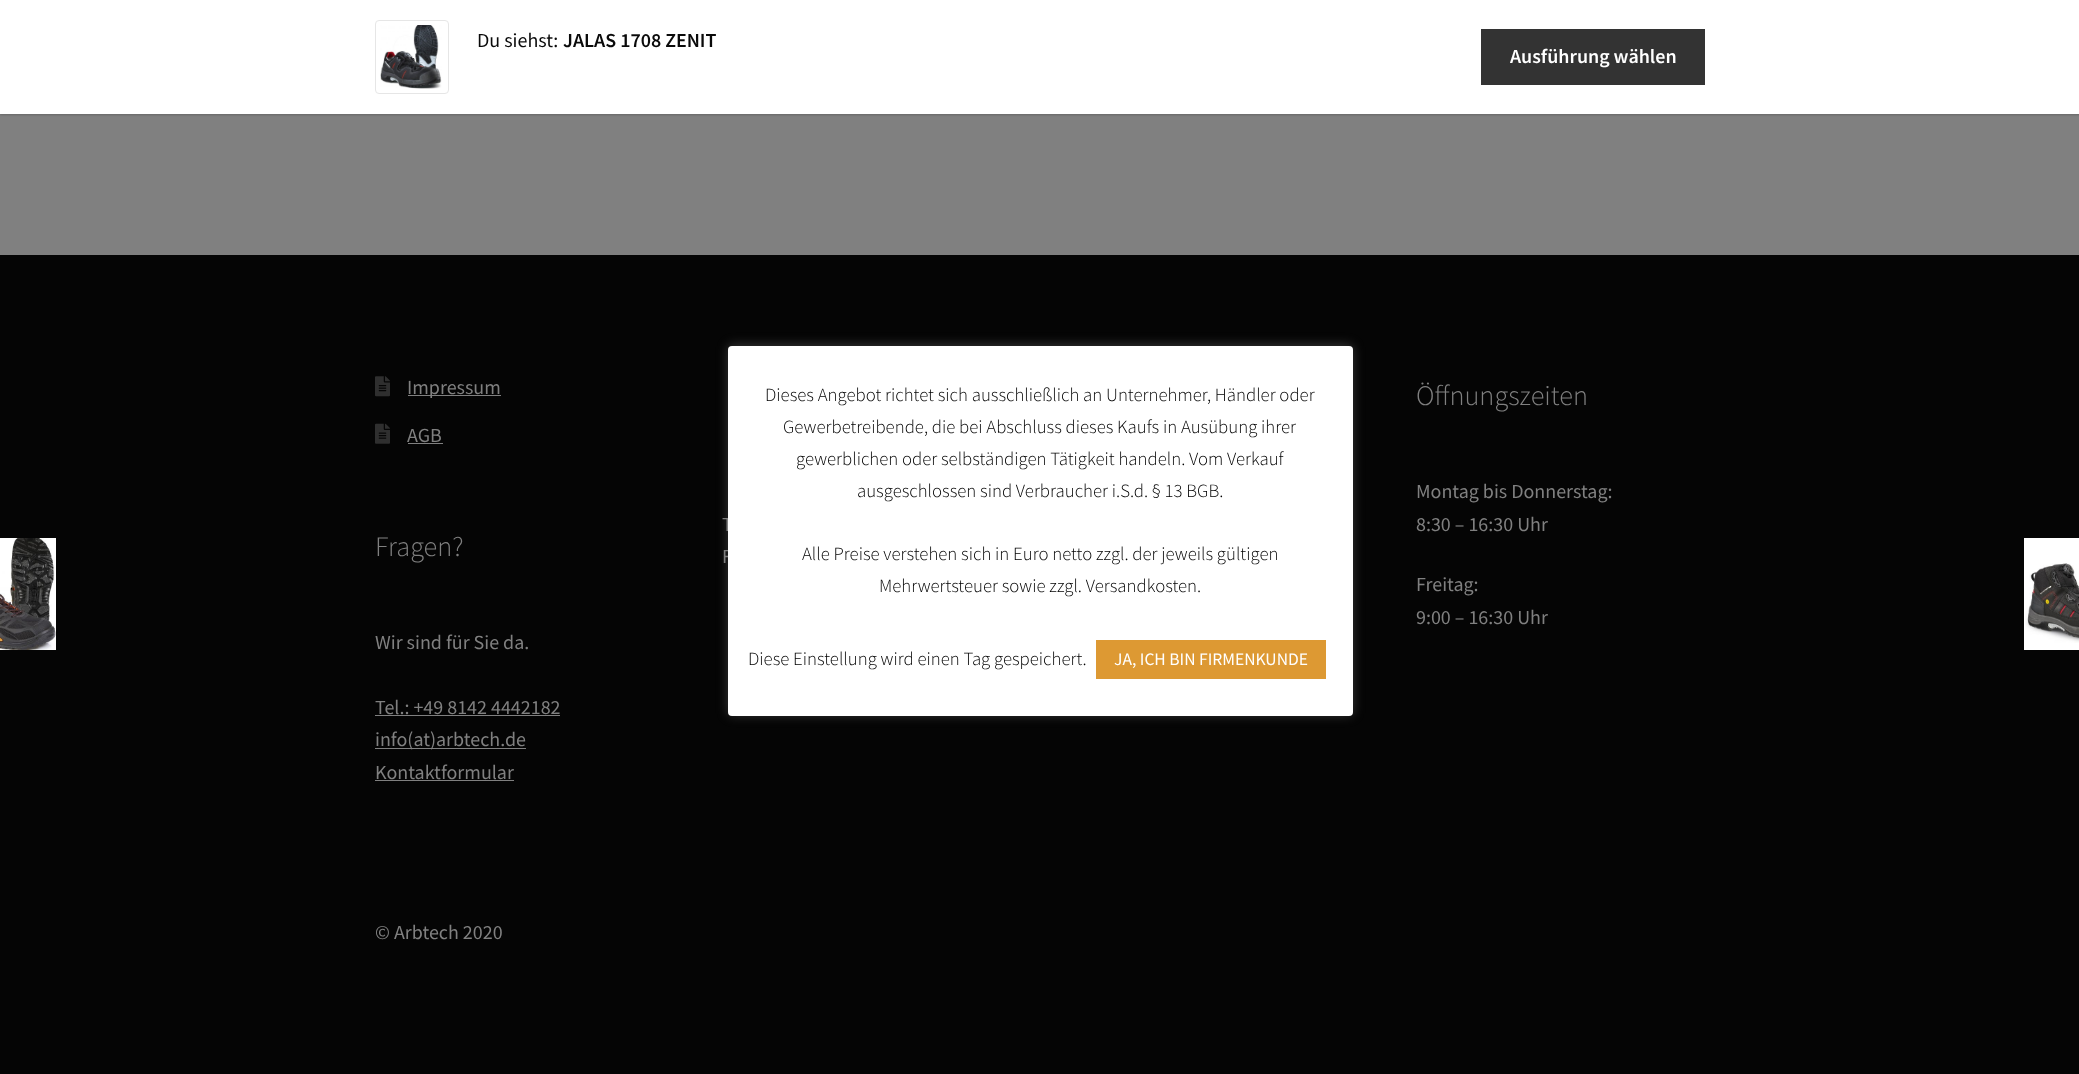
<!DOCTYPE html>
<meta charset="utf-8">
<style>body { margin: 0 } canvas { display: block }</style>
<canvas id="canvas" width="2079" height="1074"></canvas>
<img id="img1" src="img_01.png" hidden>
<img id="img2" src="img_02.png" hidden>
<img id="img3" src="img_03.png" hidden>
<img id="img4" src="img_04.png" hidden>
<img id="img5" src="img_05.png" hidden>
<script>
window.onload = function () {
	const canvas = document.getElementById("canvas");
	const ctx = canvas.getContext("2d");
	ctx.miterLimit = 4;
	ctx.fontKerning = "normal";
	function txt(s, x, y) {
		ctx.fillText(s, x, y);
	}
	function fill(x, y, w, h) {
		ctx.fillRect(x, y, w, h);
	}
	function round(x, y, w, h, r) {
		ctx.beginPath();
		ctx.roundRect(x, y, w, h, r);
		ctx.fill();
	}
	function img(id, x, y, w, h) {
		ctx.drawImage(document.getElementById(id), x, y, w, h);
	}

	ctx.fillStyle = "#808080";
	fill(0, 0, 2079, 1074);
	ctx.fillStyle = "rgba(0, 0, 0, 0.2)";
	ctx.filter = "blur(1px)";
	ctx.beginPath();
	ctx.rect(0, 1, 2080, 114);
	ctx.fill();
	ctx.filter = "none";
	ctx.fillStyle = "#FFFFFF";
	fill(0, 0, 2079, 114);
	ctx.beginPath();
	ctx.roundRect(375.5, 20.5, 73, 73, 3.5);
	ctx.strokeStyle = "#E6E6E6";
	ctx.stroke();
	img("img1", 380, 25, 62, 64);
	ctx.fillStyle = "#333333";
	fill(1481, 29, 224, 56);
	ctx.fillStyle = "#050505";
	fill(0, 255, 2079, 819);
	img("img2", 375, 376, 15, 21);
	ctx.fillStyle = "#808080";
	fill(408, 395, 93, 1);
	img("img3", 375, 423, 15, 21);
	fill(408, 443, 35, 1);
	fill(375, 715, 185, 1);
	fill(375, 748, 151, 1);
	fill(375, 780, 139, 1);
	img("img4", 0, 538, 56, 112);
	ctx.fillStyle = "#FFFFFF";
	fill(2024, 538, 55, 112);
	img("img5", 2025, 563, 54, 80);
	ctx.fillStyle = "rgba(172, 171, 171, 0.3)";
	ctx.filter = "blur(6px)";
	ctx.beginPath();
	ctx.roundRect(728, 345, 625, 370, 4);
	ctx.fill();
	ctx.filter = "none";
	ctx.font = "20px Source Sans Pro";
	ctx.fillStyle = "#0A0A0A";
	txt("Du siehst:", 477, 47);
	ctx.font = "600 20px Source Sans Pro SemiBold";
	txt("JALAS 1708 ZENIT", 563, 47);
	ctx.fillStyle = "#FFFFFF";
	txt("Ausführung wählen", 1510, 63);
	ctx.font = "20px Source Sans Pro";
	ctx.fillStyle = "#808080";
	txt("Impressum", 407, 394);
	txt("AGB", 407, 442);
	ctx.font = "300 28.25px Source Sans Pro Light";
	txt("Fragen?", 375, 556);
	ctx.font = "20px Source Sans Pro";
	txt("Wir sind für Sie da.", 375, 649);
	txt("Tel.: +49 8142 4442182", 375, 714);
	txt("info(at)arbtech.de", 375, 746);
	txt("Kontaktformular", 375, 779);
	txt("T", 722, 531);
	txt("F", 722, 563);
	ctx.font = "300 28.25px Source Sans Pro Light";
	txt("Öffnungszeiten", 1416, 405);
	ctx.font = "20px Source Sans Pro";
	txt("Montag bis Donnerstag:", 1416, 498);
	txt("8:30 – 16:30 Uhr", 1416, 531);
	txt("Freitag:", 1416, 591);
	txt("9:00 – 16:30 Uhr", 1416, 624);
	txt("© Arbtech 2020", 375, 939);
	ctx.fillStyle = "#FFFFFF";
	round(728, 346, 625, 370, 4);
	ctx.font = "300 18.75px Source Sans Pro Light";
	ctx.fillStyle = "#000000";
	txt("Dieses Angebot richtet sich ausschließlich an Unternehmer, Händler oder", 765, 401);
	txt("Gewerbetreibende, die bei Abschluss dieses Kaufs in Ausübung ihrer", 783, 433);
	txt("gewerblichen oder selbständigen Tätigkeit handeln. Vom Verkauf", 796, 465);
	txt("ausgeschlossen sind Verbraucher i.S.d. § 13 BGB.", 857, 497);
	txt("Alle Preise verstehen sich in Euro netto zzgl. der jeweils gültigen", 802, 560);
	txt("Mehrwertsteuer sowie zzgl. Versandkosten.", 879, 592);
	txt("Diese Einstellung wird einen Tag gespeichert.", 748, 665);
	ctx.fillStyle = "#DD9933";
	fill(1096, 640, 230, 39);
	ctx.font = "17.5px Source Sans Pro";
	ctx.fillStyle = "#FFFFFF";
	txt("JA, ICH BIN FIRMENKUNDE", 1114, 665);
};
</script>
